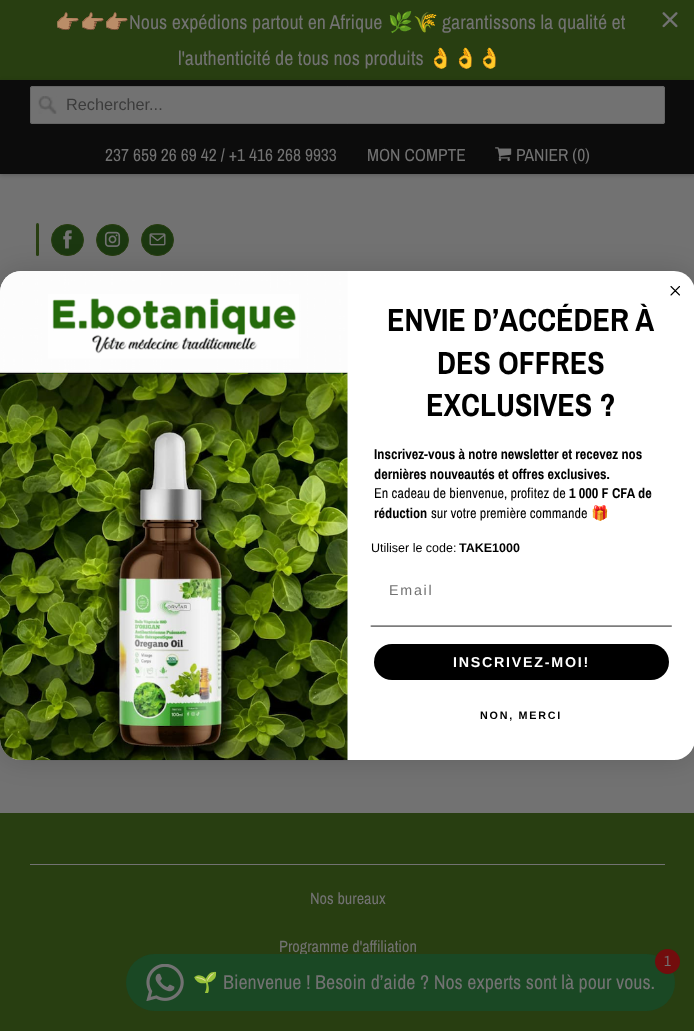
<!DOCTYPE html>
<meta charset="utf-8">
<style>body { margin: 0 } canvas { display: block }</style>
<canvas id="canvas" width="694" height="1031"></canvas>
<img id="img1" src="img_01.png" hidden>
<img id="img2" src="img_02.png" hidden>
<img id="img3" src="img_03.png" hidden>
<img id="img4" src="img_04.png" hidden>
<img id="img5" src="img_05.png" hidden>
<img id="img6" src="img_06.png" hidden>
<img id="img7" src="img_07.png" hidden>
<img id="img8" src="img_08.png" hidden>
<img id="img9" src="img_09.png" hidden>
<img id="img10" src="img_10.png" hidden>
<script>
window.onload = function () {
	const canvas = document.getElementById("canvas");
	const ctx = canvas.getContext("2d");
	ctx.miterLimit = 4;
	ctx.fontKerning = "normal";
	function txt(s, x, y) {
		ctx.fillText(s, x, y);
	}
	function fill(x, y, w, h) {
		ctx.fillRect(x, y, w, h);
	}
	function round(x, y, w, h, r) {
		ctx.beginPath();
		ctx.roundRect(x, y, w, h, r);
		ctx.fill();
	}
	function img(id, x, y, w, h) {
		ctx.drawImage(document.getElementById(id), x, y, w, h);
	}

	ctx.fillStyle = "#727272";
	fill(0, 0, 694, 1031);
	ctx.fillStyle = "#283E11";
	fill(0, 0, 694, 80);
	img("img1", 662, 12, 16, 16);
	ctx.fillStyle = "rgba(12, 12, 12, 0.25)";
	ctx.filter = "blur(2px)";
	ctx.beginPath();
	ctx.rect(0, 81, 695, 94);
	ctx.fill();
	ctx.filter = "none";
	ctx.fillStyle = "#0C0C0C";
	fill(0, 80, 694, 94);
	ctx.fillStyle = "#727272";
	round(30, 86, 635, 38, 2.5);
	img("img2", 38, 96, 19, 18);
	ctx.beginPath();
	ctx.roundRect(30.5, 86.5, 634, 37, 2);
	ctx.strokeStyle = "#656565";
	ctx.stroke();
	img("img3", 495, 147, 17, 14);
	ctx.fillStyle = "#283E11";
	round(36, 223, 3, 33, 1.5);
	ctx.fillStyle = "#1B3710";
	ctx.beginPath();
	ctx.roundRect(51.5, 224.5, 32, 31, 15.5);
	ctx.fill();
	ctx.strokeStyle = "#283E11";
	ctx.stroke();
	img("img4", 63, 230, 9, 19);
	ctx.beginPath();
	ctx.roundRect(96.5, 224.5, 32, 31, 15.5);
	ctx.fill();
	ctx.stroke();
	img("img5", 104, 231, 17, 16);
	ctx.beginPath();
	ctx.roundRect(141.5, 224.5, 32, 31, 15.5);
	ctx.fill();
	ctx.stroke();
	img("img6", 149, 233, 17, 13);
	img("img7", 36, 268, 376, 3);
	ctx.fillStyle = "rgba(0, 0, 0, 0.15)";
	ctx.filter = "blur(13.5px)";
	ctx.beginPath();
	ctx.roundRect(0, 271, 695, 489, 21);
	ctx.fill();
	ctx.filter = "none";
	ctx.fillStyle = "#FFFFFF";
	round(0, 271, 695, 489, 21);
	ctx.beginPath();
	ctx.moveTo(671, 286.5);
	ctx.lineTo(679.5, 295);
	ctx.moveTo(671, 295);
	ctx.lineTo(679.5, 286.5);
	ctx.closePath();
	ctx.strokeStyle = "#000000";
	ctx.lineWidth = 1.1;
	ctx.lineCap = "round";
	ctx.lineJoin = "round";
	ctx.stroke();
	img("img8", 0, 271, 348, 490);
	img("img9", 370, 625, 302, 2);
	ctx.fillStyle = "#000000";
	round(374, 644, 295, 36, 18);
	ctx.fillStyle = "#283E11";
	fill(0, 813, 694, 218);
	ctx.fillStyle = "#727272";
	fill(30, 864, 635, 1);
	ctx.font = "20px Noto Color Emoji";
	txt("👉🏽👉🏽👉🏽", 55, 29);
	ctx.font = "20px Archivo Narrow";
	txt("Nous expédions partout en Afrique", 129, 29);
	ctx.font = "20px Noto Color Emoji";
	txt("🌿🌾", 388, 29);
	ctx.font = "20px Archivo Narrow";
	txt("garantissons la qualité et", 442, 29);
	txt("l'authenticité de tous nos produits", 178, 65);
	ctx.font = "20px Noto Color Emoji";
	txt("👌👌👌", 428, 65);
	ctx.font = "16.25px Liberation Sans";
	ctx.fillStyle = "#3B3B3B";
	txt("Rechercher...", 66, 110);
	ctx.font = "17.5px Archivo Narrow";
	ctx.fillStyle = "#727272";
	txt("237 659 26 69 42 / +1 416 268 9933", 105, 161);
	txt("MON COMPTE", 367, 161);
	txt("PANIER (0)", 516, 161);
	ctx.font = "bold 32px Archivo Narrow";
	ctx.fillStyle = "#000000";
	txt("ENVIE D’ACCÉDER À", 387, 331);
	txt("DES OFFRES", 437, 374);
	txt("EXCLUSIVES ?", 426, 416);
	ctx.font = "bold 14.25px Archivo Narrow";
	txt("Inscrivez-vous à notre newsletter et recevez nos", 374, 459);
	txt("dernières nouveautés et offres exclusives.", 374, 479);
	ctx.font = "14.25px Archivo Narrow";
	txt("En cadeau de bienvenue, profitez de", 374, 498);
	ctx.font = "bold 14.25px Archivo Narrow";
	txt("1 000 F CFA de", 569, 498);
	txt("réduction", 374, 518);
	ctx.font = "14.25px Archivo Narrow";
	txt("sur votre première commande", 431, 518);
	ctx.font = "14.25px Noto Color Emoji";
	txt("🎁", 591, 518);
	ctx.font = "12.5px Liberation Sans";
	txt("Utiliser le code:", 371, 552);
	ctx.font = "bold 12.5px Liberation Sans";
	txt("TAKE1000", 459, 552);
	ctx.letterSpacing = "1.75px";
	ctx.font = "14.25px Liberation Sans";
	ctx.fillStyle = "#727272";
	txt("Email", 389, 595);
	ctx.font = "bold 14.25px Liberation Sans";
	ctx.fillStyle = "#FFFFFF";
	txt("INSCRIVEZ-MOI!", 453, 667);
	ctx.font = "bold 10.75px Liberation Sans";
	ctx.fillStyle = "#000000";
	txt("NON, MERCI", 480, 719);
	ctx.letterSpacing = "0px";
	ctx.font = "16.25px Archivo Narrow";
	ctx.fillStyle = "#727272";
	txt("Nos bureaux", 310, 904);
	txt("Programme d'affiliation", 279, 952);
	ctx.fillStyle = "#1A4824";
	round(126, 954, 549, 57, 28.5);
	ctx.fillStyle = "#720D0D";
	ctx.beginPath();
	ctx.arc(667.5, 961.5, 12.5, 0, Math.PI * 2);
	ctx.fill();
	ctx.font = "15px Archivo Narrow";
	ctx.fillStyle = "#727272";
	txt("1", 664, 966);
	img("img10", 146, 964, 38, 37);
	ctx.font = "20px Noto Color Emoji";
	txt("🌱", 193, 989);
	ctx.font = "20px Archivo Narrow";
	txt("Bienvenue ! Besoin d’aide ? Nos experts sont là pour vous.", 223, 989);
};
</script>
